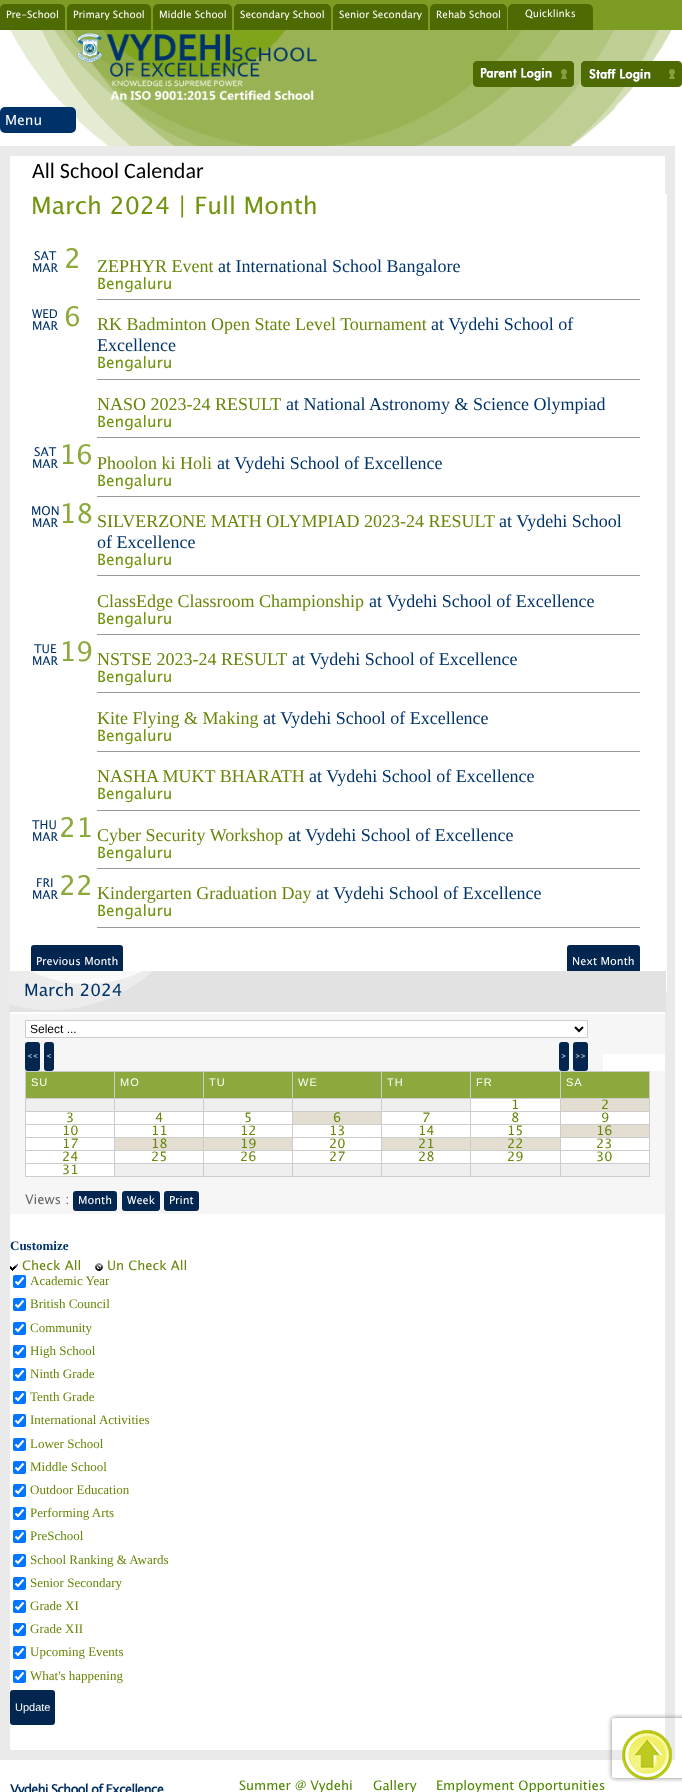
<!DOCTYPE html>
<meta charset="utf-8">
<style>body { margin: 0 } canvas { display: block }</style>
<canvas id="canvas" width="682" height="1792"></canvas>
<img id="img1" src="img_01.png" hidden>
<img id="img2" src="img_02.png" hidden>
<img id="img3" src="img_03.png" hidden>
<img id="img4" src="img_04.png" hidden>
<img id="img5" src="img_05.png" hidden>
<img id="img6" src="img_06.png" hidden>
<img id="img7" src="img_07.png" hidden>
<img id="img8" src="img_08.png" hidden>
<img id="img9" src="img_09.png" hidden>
<script>
window.onload = function () {
	const canvas = document.getElementById("canvas");
	const ctx = canvas.getContext("2d");
	ctx.miterLimit = 4;
	ctx.fontKerning = "normal";
	function txt(s, x, y) {
		ctx.fillText(s, x, y);
	}
	function fill(x, y, w, h) {
		ctx.fillRect(x, y, w, h);
	}
	function round(x, y, w, h, r) {
		ctx.beginPath();
		ctx.roundRect(x, y, w, h, r);
		ctx.fill();
	}
	function img(id, x, y, w, h) {
		ctx.drawImage(document.getElementById(id), x, y, w, h);
	}

	ctx.fillStyle = "#FFFFFF";
	fill(0, 0, 682, 1792);
	img("img1", 10, 30, 662, 116);
	ctx.fillStyle = "#7D9C24";
	fill(0, 0, 682, 30);
	ctx.fillStyle = "#4E6A03";
	ctx.beginPath();
	ctx.roundRect(0, 4, 65, 26, [5, 5, 0, 0]);
	ctx.fill();
	ctx.beginPath();
	ctx.roundRect(67, 4, 84, 26, [5, 5, 0, 0]);
	ctx.fill();
	ctx.beginPath();
	ctx.roundRect(153, 4, 79, 26, [5, 5, 0, 0]);
	ctx.fill();
	ctx.beginPath();
	ctx.roundRect(234, 4, 97, 26, [5, 5, 0, 0]);
	ctx.fill();
	ctx.beginPath();
	ctx.roundRect(333, 4, 95, 26, [5, 5, 0, 0]);
	ctx.fill();
	ctx.beginPath();
	ctx.roundRect(430, 4, 77, 26, [5, 5, 0, 0]);
	ctx.fill();
	ctx.beginPath();
	ctx.roundRect(508, 4, 85, 26, [5, 5, 0, 0]);
	ctx.fill();
	img("img2", 77, 33, 240, 67);
	img("img3", 473, 61, 101, 26);
	img("img4", 581, 61, 101, 26);
	ctx.fillStyle = "#00326A";
	round(0, 107, 76, 26, 5);
	ctx.strokeStyle = "#EAEAEA";
	ctx.lineWidth = 10;
	ctx.strokeRect(5, 151, 665, 1604);
	ctx.fillStyle = "#FFFFFF";
	fill(665, 194, 2, 797);
	ctx.fillStyle = "#999999";
	fill(97, 299, 543, 1);
	fill(97, 379, 543, 1);
	fill(97, 437, 543, 1);
	fill(97, 496, 543, 1);
	fill(97, 575, 543, 1);
	fill(97, 634, 543, 1);
	fill(97, 692, 543, 1);
	fill(97, 751, 543, 1);
	fill(97, 810, 543, 1);
	fill(97, 868, 543, 1);
	fill(97, 927, 543, 1);
	ctx.fillStyle = "#032650";
	round(31, 945, 92, 35, 3);
	round(567, 945, 73, 35, 3);
	ctx.fillStyle = "#E3E2E2";
	fill(9, 971, 657, 41);
	img("img5", 9, 971, 143, 39);
	ctx.fillStyle = "#F6F6F6";
	fill(10, 1014, 655, 40);
	ctx.fillStyle = "#FFFFFF";
	ctx.beginPath();
	ctx.rect(25.5, 1020.5, 562, 17);
	ctx.fill();
	ctx.strokeStyle = "#CCCCCC";
	ctx.lineWidth = 1;
	ctx.stroke();
	ctx.beginPath();
	ctx.moveTo(575, 1027);
	ctx.lineTo(579, 1031);
	ctx.lineTo(583, 1027);
	ctx.strokeStyle = "#000000";
	ctx.lineWidth = 2;
	ctx.stroke();
	ctx.fillStyle = "#F6F6F6";
	fill(10, 1054, 593, 17);
	ctx.fillStyle = "#032650";
	round(25, 1042, 15, 29, 3);
	round(44, 1042, 10, 29, 3);
	round(559, 1042, 10, 29, 3);
	round(573, 1042, 15, 29, 3);
	ctx.fillStyle = "#F6F6F6";
	fill(10, 1071, 655, 143);
	ctx.fillStyle = "#CCCCCC";
	fill(25, 1071, 625, 1);
	fill(25, 1176, 625, 1);
	fill(25, 1071, 1, 106);
	ctx.fillStyle = "#8CA93D";
	fill(26, 1072, 88, 26);
	fill(115, 1072, 88, 26);
	fill(204, 1072, 88, 26);
	fill(293, 1072, 88, 26);
	fill(382, 1072, 88, 26);
	fill(471, 1072, 89, 26);
	fill(561, 1072, 88, 26);
	ctx.fillStyle = "#FFFFFF";
	fill(471, 1099, 89, 12);
	ctx.fillStyle = "#EFEFEF";
	fill(26, 1099, 88, 12);
	ctx.fillStyle = "#CCCCCC";
	fill(25, 1098, 625, 1);
	ctx.fillStyle = "#FFFFFF";
	fill(26, 1112, 623, 12);
	ctx.fillStyle = "#CCCCCC";
	fill(25, 1111, 625, 1);
	ctx.fillStyle = "#FFFFFF";
	fill(26, 1125, 534, 12);
	ctx.fillStyle = "#CCCCCC";
	fill(25, 1124, 625, 1);
	ctx.fillStyle = "#FFFFFF";
	fill(26, 1138, 623, 12);
	ctx.fillStyle = "#CCCCCC";
	fill(25, 1137, 625, 1);
	ctx.fillStyle = "#FFFFFF";
	fill(26, 1151, 623, 12);
	ctx.fillStyle = "#CCCCCC";
	fill(25, 1150, 625, 1);
	fill(25, 1163, 625, 1);
	fill(114, 1163, 1, 14);
	fill(114, 1150, 1, 14);
	fill(114, 1137, 1, 14);
	fill(114, 1124, 1, 14);
	fill(114, 1111, 1, 14);
	fill(114, 1071, 1, 41);
	ctx.fillStyle = "#EFEFEF";
	fill(115, 1099, 88, 12);
	ctx.fillStyle = "#CCCCCC";
	fill(203, 1163, 1, 14);
	fill(203, 1150, 1, 14);
	fill(203, 1137, 1, 14);
	fill(203, 1124, 1, 14);
	fill(203, 1111, 1, 14);
	fill(203, 1071, 1, 41);
	ctx.fillStyle = "#EFEFEF";
	fill(204, 1099, 88, 12);
	ctx.fillStyle = "#CCCCCC";
	fill(292, 1163, 1, 14);
	fill(292, 1150, 1, 14);
	fill(292, 1137, 1, 14);
	fill(292, 1124, 1, 14);
	fill(292, 1111, 1, 14);
	fill(292, 1071, 1, 41);
	ctx.fillStyle = "#EFEFEF";
	fill(293, 1099, 88, 12);
	ctx.fillStyle = "#CCCCCC";
	fill(381, 1163, 1, 14);
	fill(381, 1150, 1, 14);
	fill(381, 1137, 1, 14);
	fill(381, 1124, 1, 14);
	fill(381, 1111, 1, 14);
	fill(381, 1071, 1, 41);
	ctx.fillStyle = "#EFEFEF";
	fill(382, 1099, 88, 12);
	ctx.fillStyle = "#CCCCCC";
	fill(470, 1163, 1, 14);
	fill(470, 1150, 1, 14);
	fill(470, 1137, 1, 14);
	fill(470, 1124, 1, 14);
	fill(470, 1111, 1, 14);
	fill(470, 1071, 1, 41);
	fill(560, 1163, 1, 14);
	fill(560, 1150, 1, 14);
	fill(560, 1137, 1, 14);
	fill(560, 1124, 1, 14);
	fill(560, 1111, 1, 14);
	fill(560, 1071, 1, 41);
	ctx.fillStyle = "#E4DED2";
	fill(561, 1099, 88, 12);
	ctx.fillStyle = "#CCCCCC";
	fill(649, 1163, 1, 14);
	fill(649, 1150, 1, 14);
	fill(649, 1137, 1, 14);
	fill(649, 1124, 1, 14);
	fill(649, 1111, 1, 14);
	fill(649, 1071, 1, 41);
	ctx.fillStyle = "#E4DED2";
	fill(293, 1112, 88, 12);
	fill(561, 1125, 88, 12);
	fill(115, 1138, 88, 12);
	fill(204, 1138, 88, 12);
	fill(382, 1138, 88, 12);
	fill(471, 1138, 89, 12);
	ctx.fillStyle = "#FFFFFF";
	fill(26, 1164, 88, 12);
	ctx.fillStyle = "#EFEFEF";
	fill(561, 1164, 88, 12);
	fill(115, 1164, 88, 12);
	fill(204, 1164, 88, 12);
	fill(293, 1164, 88, 12);
	fill(382, 1164, 88, 12);
	fill(471, 1164, 89, 12);
	ctx.fillStyle = "#032650";
	round(73, 1191, 44, 20, 3);
	round(122, 1191, 38, 20, 3);
	round(164, 1191, 35, 20, 3);
	img("img6", 10, 1263, 8, 8);
	img("img7", 95, 1263, 8, 8);
	ctx.fillStyle = "#0075FF";
	round(13, 1275, 13, 13, 2);
	ctx.beginPath();
	ctx.moveTo(15.5, 1281.5);
	ctx.lineTo(18, 1284);
	ctx.lineTo(23.5, 1277.5);
	ctx.strokeStyle = "#FFFFFF";
	ctx.lineWidth = 2.1;
	ctx.stroke();
	round(13, 1298, 13, 13, 2);
	ctx.beginPath();
	ctx.moveTo(15.5, 1304.5);
	ctx.lineTo(18, 1307);
	ctx.lineTo(23.5, 1300.5);
	ctx.stroke();
	round(13, 1322, 13, 13, 2);
	ctx.beginPath();
	ctx.moveTo(15.5, 1328.5);
	ctx.lineTo(18, 1331);
	ctx.lineTo(23.5, 1324.5);
	ctx.stroke();
	round(13, 1345, 13, 13, 2);
	ctx.beginPath();
	ctx.moveTo(15.5, 1351.5);
	ctx.lineTo(18, 1354);
	ctx.lineTo(23.5, 1347.5);
	ctx.stroke();
	round(13, 1368, 13, 13, 2);
	ctx.beginPath();
	ctx.moveTo(15.5, 1374.5);
	ctx.lineTo(18, 1377);
	ctx.lineTo(23.5, 1370.5);
	ctx.stroke();
	round(13, 1391, 13, 13, 2);
	ctx.beginPath();
	ctx.moveTo(15.5, 1397.5);
	ctx.lineTo(18, 1400);
	ctx.lineTo(23.5, 1393.5);
	ctx.stroke();
	round(13, 1414, 13, 13, 2);
	ctx.beginPath();
	ctx.moveTo(15.5, 1420.5);
	ctx.lineTo(18, 1423);
	ctx.lineTo(23.5, 1416.5);
	ctx.stroke();
	round(13, 1438, 13, 13, 2);
	ctx.beginPath();
	ctx.moveTo(15.5, 1444.5);
	ctx.lineTo(18, 1447);
	ctx.lineTo(23.5, 1440.5);
	ctx.stroke();
	round(13, 1461, 13, 13, 2);
	ctx.beginPath();
	ctx.moveTo(15.5, 1467.5);
	ctx.lineTo(18, 1470);
	ctx.lineTo(23.5, 1463.5);
	ctx.stroke();
	round(13, 1484, 13, 13, 2);
	ctx.beginPath();
	ctx.moveTo(15.5, 1490.5);
	ctx.lineTo(18, 1493);
	ctx.lineTo(23.5, 1486.5);
	ctx.stroke();
	round(13, 1507, 13, 13, 2);
	ctx.beginPath();
	ctx.moveTo(15.5, 1513.5);
	ctx.lineTo(18, 1516);
	ctx.lineTo(23.5, 1509.5);
	ctx.stroke();
	round(13, 1530, 13, 13, 2);
	ctx.beginPath();
	ctx.moveTo(15.5, 1536.5);
	ctx.lineTo(18, 1539);
	ctx.lineTo(23.5, 1532.5);
	ctx.stroke();
	round(13, 1554, 13, 13, 2);
	ctx.beginPath();
	ctx.moveTo(15.5, 1560.5);
	ctx.lineTo(18, 1563);
	ctx.lineTo(23.5, 1556.5);
	ctx.stroke();
	round(13, 1577, 13, 13, 2);
	ctx.beginPath();
	ctx.moveTo(15.5, 1583.5);
	ctx.lineTo(18, 1586);
	ctx.lineTo(23.5, 1579.5);
	ctx.stroke();
	round(13, 1600, 13, 13, 2);
	ctx.beginPath();
	ctx.moveTo(15.5, 1606.5);
	ctx.lineTo(18, 1609);
	ctx.lineTo(23.5, 1602.5);
	ctx.stroke();
	round(13, 1623, 13, 13, 2);
	ctx.beginPath();
	ctx.moveTo(15.5, 1629.5);
	ctx.lineTo(18, 1632);
	ctx.lineTo(23.5, 1625.5);
	ctx.stroke();
	round(13, 1646, 13, 13, 2);
	ctx.beginPath();
	ctx.moveTo(15.5, 1652.5);
	ctx.lineTo(18, 1655);
	ctx.lineTo(23.5, 1648.5);
	ctx.stroke();
	round(13, 1670, 13, 13, 2);
	ctx.beginPath();
	ctx.moveTo(15.5, 1676.5);
	ctx.lineTo(18, 1679);
	ctx.lineTo(23.5, 1672.5);
	ctx.stroke();
	ctx.fillStyle = "#032650";
	round(10, 1690, 45, 35, 3);
	img("img8", 622, 1730, 50, 50);
	img("img9", 622, 1730, 50, 50);
	ctx.save();
	ctx.beginPath();
	ctx.moveTo(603, 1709);
	ctx.lineTo(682, 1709);
	ctx.lineTo(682, 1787);
	ctx.lineTo(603, 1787);
	ctx.closePath();
	ctx.moveTo(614, 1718);
	ctx.lineTo(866, 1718);
	ctx.bezierCurveTo(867, 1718, 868, 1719, 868, 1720);
	ctx.lineTo(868, 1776);
	ctx.bezierCurveTo(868, 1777, 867, 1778, 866, 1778);
	ctx.lineTo(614, 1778);
	ctx.bezierCurveTo(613, 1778, 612, 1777, 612, 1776);
	ctx.lineTo(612, 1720);
	ctx.bezierCurveTo(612, 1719, 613, 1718, 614, 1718);
	ctx.closePath();
	ctx.clip("evenodd");
	ctx.fillStyle = "#808080";
	ctx.filter = "blur(2.5px)";
	ctx.beginPath();
	ctx.roundRect(612, 1718, 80, 60, 2);
	ctx.fill();
	ctx.filter = "none";
	ctx.restore();
	ctx.font = "10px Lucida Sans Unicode";
	ctx.fillStyle = "#FFFFFF";
	txt("Pre-School", 6, 18);
	txt("Primary School", 73, 18);
	txt("Middle School", 159, 18);
	txt("Secondary School", 240, 18);
	txt("Senior Secondary", 339, 18);
	txt("Rehab School", 436, 18);
	ctx.font = "10px Lucida Grande";
	txt("Quicklinks", 525, 17);
	ctx.font = "14px Lucida Sans Unicode";
	txt("Menu", 5, 125);
	ctx.font = "22px Carlito";
	ctx.fillStyle = "#000000";
	txt("All School Calendar", 32, 178);
	ctx.font = "24px Lucida Grande";
	ctx.fillStyle = "#70940D";
	txt("March 2024 | Full Month", 31, 214);
	ctx.font = "12px Lucida Grande";
	ctx.fillStyle = "#00336A";
	txt("SAT", 34, 260);
	ctx.font = "27px Lucida Grande";
	ctx.fillStyle = "#8CA93D";
	txt("2", 64, 268);
	ctx.font = "12px Lucida Grande";
	ctx.fillStyle = "#00336A";
	txt("MAR", 32, 272);
	ctx.font = "18px Liberation Serif";
	ctx.fillStyle = "#658608";
	txt("ZEPHYR Event", 97, 272);
	ctx.fillStyle = "#00336A";
	txt("at International School Bangalore", 218, 272);
	ctx.font = "15.5px Lucida Grande";
	ctx.fillStyle = "#70940D";
	txt("Bengaluru", 97, 289);
	ctx.font = "12px Lucida Grande";
	ctx.fillStyle = "#00336A";
	txt("WED", 32, 318);
	ctx.font = "27px Lucida Grande";
	ctx.fillStyle = "#8CA93D";
	txt("6", 64, 326);
	ctx.font = "12px Lucida Grande";
	ctx.fillStyle = "#00336A";
	txt("MAR", 32, 330);
	ctx.font = "18px Liberation Serif";
	ctx.fillStyle = "#658608";
	txt("RK Badminton Open State Level Tournament", 97, 330);
	ctx.fillStyle = "#00336A";
	txt("at Vydehi School of", 431, 330);
	txt("Excellence", 97, 351);
	ctx.font = "15.5px Lucida Grande";
	ctx.fillStyle = "#70940D";
	txt("Bengaluru", 97, 368);
	ctx.font = "18px Liberation Serif";
	ctx.fillStyle = "#658608";
	txt("NASO 2023-24 RESULT", 97, 410);
	ctx.fillStyle = "#00336A";
	txt("at National Astronomy & Science Olympiad", 286, 410);
	ctx.font = "15.5px Lucida Grande";
	ctx.fillStyle = "#70940D";
	txt("Bengaluru", 97, 427);
	ctx.font = "12px Lucida Grande";
	ctx.fillStyle = "#00336A";
	txt("SAT", 34, 456);
	ctx.font = "27px Lucida Grande";
	ctx.fillStyle = "#8CA93D";
	txt("16", 59, 464);
	ctx.font = "12px Lucida Grande";
	ctx.fillStyle = "#00336A";
	txt("MAR", 32, 468);
	ctx.font = "18px Liberation Serif";
	ctx.fillStyle = "#658608";
	txt("Phoolon ki Holi", 97, 469);
	ctx.fillStyle = "#00336A";
	txt("at Vydehi School of Excellence", 217, 469);
	ctx.font = "15.5px Lucida Grande";
	ctx.fillStyle = "#70940D";
	txt("Bengaluru", 97, 486);
	ctx.font = "12px Lucida Grande";
	ctx.fillStyle = "#00336A";
	txt("MON", 31, 515);
	ctx.font = "27px Lucida Grande";
	ctx.fillStyle = "#8CA93D";
	txt("18", 59, 523);
	ctx.font = "12px Lucida Grande";
	ctx.fillStyle = "#00336A";
	txt("MAR", 32, 527);
	ctx.font = "18px Liberation Serif";
	ctx.fillStyle = "#658608";
	txt("SILVERZONE MATH OLYMPIAD 2023-24 RESULT", 97, 527);
	ctx.fillStyle = "#00336A";
	txt("at Vydehi School", 499, 527);
	txt("of Excellence", 97, 548);
	ctx.font = "15.5px Lucida Grande";
	ctx.fillStyle = "#70940D";
	txt("Bengaluru", 97, 565);
	ctx.font = "18px Liberation Serif";
	ctx.fillStyle = "#658608";
	txt("ClassEdge Classroom Championship", 97, 607);
	ctx.fillStyle = "#00336A";
	txt("at Vydehi School of Excellence", 369, 607);
	ctx.font = "15.5px Lucida Grande";
	ctx.fillStyle = "#70940D";
	txt("Bengaluru", 97, 624);
	ctx.font = "12px Lucida Grande";
	ctx.fillStyle = "#00336A";
	txt("TUE", 34, 653);
	ctx.font = "27px Lucida Grande";
	ctx.fillStyle = "#8CA93D";
	txt("19", 59, 661);
	ctx.font = "12px Lucida Grande";
	ctx.fillStyle = "#00336A";
	txt("MAR", 32, 665);
	ctx.font = "18px Liberation Serif";
	ctx.fillStyle = "#658608";
	txt("NSTSE 2023-24 RESULT", 97, 665);
	ctx.fillStyle = "#00336A";
	txt("at Vydehi School of Excellence", 292, 665);
	ctx.font = "15.5px Lucida Grande";
	ctx.fillStyle = "#70940D";
	txt("Bengaluru", 97, 682);
	ctx.font = "18px Liberation Serif";
	ctx.fillStyle = "#658608";
	txt("Kite Flying & Making", 97, 724);
	ctx.fillStyle = "#00336A";
	txt("at Vydehi School of Excellence", 263, 724);
	ctx.font = "15.5px Lucida Grande";
	ctx.fillStyle = "#70940D";
	txt("Bengaluru", 97, 741);
	ctx.font = "18px Liberation Serif";
	ctx.fillStyle = "#658608";
	txt("NASHA MUKT BHARATH", 97, 782);
	ctx.fillStyle = "#00336A";
	txt("at Vydehi School of Excellence", 309, 782);
	ctx.font = "15.5px Lucida Grande";
	ctx.fillStyle = "#70940D";
	txt("Bengaluru", 97, 799);
	ctx.font = "12px Lucida Grande";
	ctx.fillStyle = "#00336A";
	txt("THU", 32, 829);
	ctx.font = "27px Lucida Grande";
	ctx.fillStyle = "#8CA93D";
	txt("21", 59, 837);
	ctx.font = "12px Lucida Grande";
	ctx.fillStyle = "#00336A";
	txt("MAR", 32, 841);
	ctx.font = "18px Liberation Serif";
	ctx.fillStyle = "#658608";
	txt("Cyber Security Workshop", 97, 841);
	ctx.fillStyle = "#00336A";
	txt("at Vydehi School of Excellence", 288, 841);
	ctx.font = "15.5px Lucida Grande";
	ctx.fillStyle = "#70940D";
	txt("Bengaluru", 97, 858);
	ctx.font = "12px Lucida Grande";
	ctx.fillStyle = "#00336A";
	txt("FRI", 36, 887);
	ctx.font = "27px Lucida Grande";
	ctx.fillStyle = "#8CA93D";
	txt("22", 59, 895);
	ctx.font = "12px Lucida Grande";
	ctx.fillStyle = "#00336A";
	txt("MAR", 32, 899);
	ctx.font = "18px Liberation Serif";
	ctx.fillStyle = "#658608";
	txt("Kindergarten Graduation Day", 97, 899);
	ctx.fillStyle = "#00336A";
	txt("at Vydehi School of Excellence", 316, 899);
	ctx.font = "15.5px Lucida Grande";
	ctx.fillStyle = "#70940D";
	txt("Bengaluru", 97, 916);
	ctx.font = "11px Lucida Grande";
	ctx.fillStyle = "#FFFFFF";
	txt("Previous Month", 36, 965);
	txt("Next Month", 572, 965);
	ctx.font = "17px Lucida Grande";
	ctx.fillStyle = "#00336A";
	txt("March 2024", 24, 996);
	ctx.font = "12px Liberation Sans";
	ctx.fillStyle = "#000000";
	txt("Select ...", 30, 1033);
	ctx.font = "7px Lucida Grande";
	ctx.fillStyle = "#FFFFFF";
	txt("<<", 27, 1058);
	txt("<", 46, 1058);
	txt(">", 561, 1058);
	txt(">>", 575, 1058);
	ctx.letterSpacing = "1px";
	ctx.font = "11px Liberation Sans";
	txt("SU", 31, 1086);
	txt("MO", 120, 1086);
	txt("TU", 209, 1086);
	txt("WE", 298, 1086);
	txt("TH", 387, 1086);
	txt("FR", 476, 1086);
	txt("SA", 566, 1086);
	ctx.letterSpacing = "0px";
	ctx.font = "13px Lucida Grande";
	ctx.fillStyle = "#658608";
	txt("1", 511, 1109);
	txt("2", 601, 1109);
	txt("3", 66, 1122);
	txt("4", 155, 1122);
	txt("5", 244, 1122);
	txt("6", 333, 1122);
	txt("7", 422, 1122);
	txt("8", 511, 1122);
	txt("9", 601, 1122);
	txt("10", 62, 1135);
	txt("11", 151, 1135);
	txt("12", 240, 1135);
	txt("13", 329, 1135);
	txt("14", 418, 1135);
	txt("15", 507, 1135);
	txt("16", 596, 1135);
	txt("17", 62, 1148);
	txt("18", 151, 1148);
	txt("19", 240, 1148);
	txt("20", 329, 1148);
	txt("21", 418, 1148);
	txt("22", 507, 1148);
	txt("23", 596, 1148);
	txt("24", 62, 1161);
	txt("25", 151, 1161);
	txt("26", 240, 1161);
	txt("27", 329, 1161);
	txt("28", 418, 1161);
	txt("29", 507, 1161);
	txt("30", 596, 1161);
	txt("31", 62, 1174);
	ctx.fillStyle = "#666666";
	txt("Views :", 25, 1204);
	ctx.font = "11px Lucida Grande";
	ctx.fillStyle = "#FFFFFF";
	txt("Month", 78, 1204);
	txt("Week", 127, 1204);
	txt("Print", 169, 1204);
	ctx.font = "bold 13px Liberation Serif";
	ctx.fillStyle = "#00336A";
	txt("Customize", 10, 1250);
	ctx.font = "13px Lucida Grande";
	ctx.fillStyle = "#658608";
	txt("Check All", 22, 1270);
	txt("Un Check All", 107, 1270);
	ctx.font = "13px Liberation Serif";
	txt("Academic Year", 30, 1285);
	txt("British Council", 30, 1308);
	txt("Community", 30, 1332);
	txt("High School", 30, 1355);
	txt("Ninth Grade", 30, 1378);
	txt("Tenth Grade", 30, 1401);
	txt("International Activities", 30, 1424);
	txt("Lower School", 30, 1448);
	txt("Middle School", 30, 1471);
	txt("Outdoor Education", 30, 1494);
	txt("Performing Arts", 30, 1517);
	txt("PreSchool", 30, 1540);
	txt("School Ranking & Awards", 30, 1564);
	txt("Senior Secondary", 30, 1587);
	txt("Grade XI", 30, 1610);
	txt("Grade XII", 30, 1633);
	txt("Upcoming Events", 30, 1656);
	txt("What's happening", 30, 1680);
	ctx.font = "11px Liberation Sans";
	ctx.fillStyle = "#FFFFFF";
	txt("Update", 15, 1711);
	ctx.letterSpacing = "-0.8px";
	ctx.font = "bold 13px Lucida Grande";
	ctx.fillStyle = "#002E5F";
	txt("Vydehi School of Excellence", 10, 1794);
	ctx.letterSpacing = "0px";
	ctx.font = "13px Lucida Grande";
	ctx.fillStyle = "#4D8800";
	txt("Summer @ Vydehi", 239, 1790);
	txt("Gallery", 373, 1790);
	txt("Employment Opportunities", 436, 1790);
};
</script>
